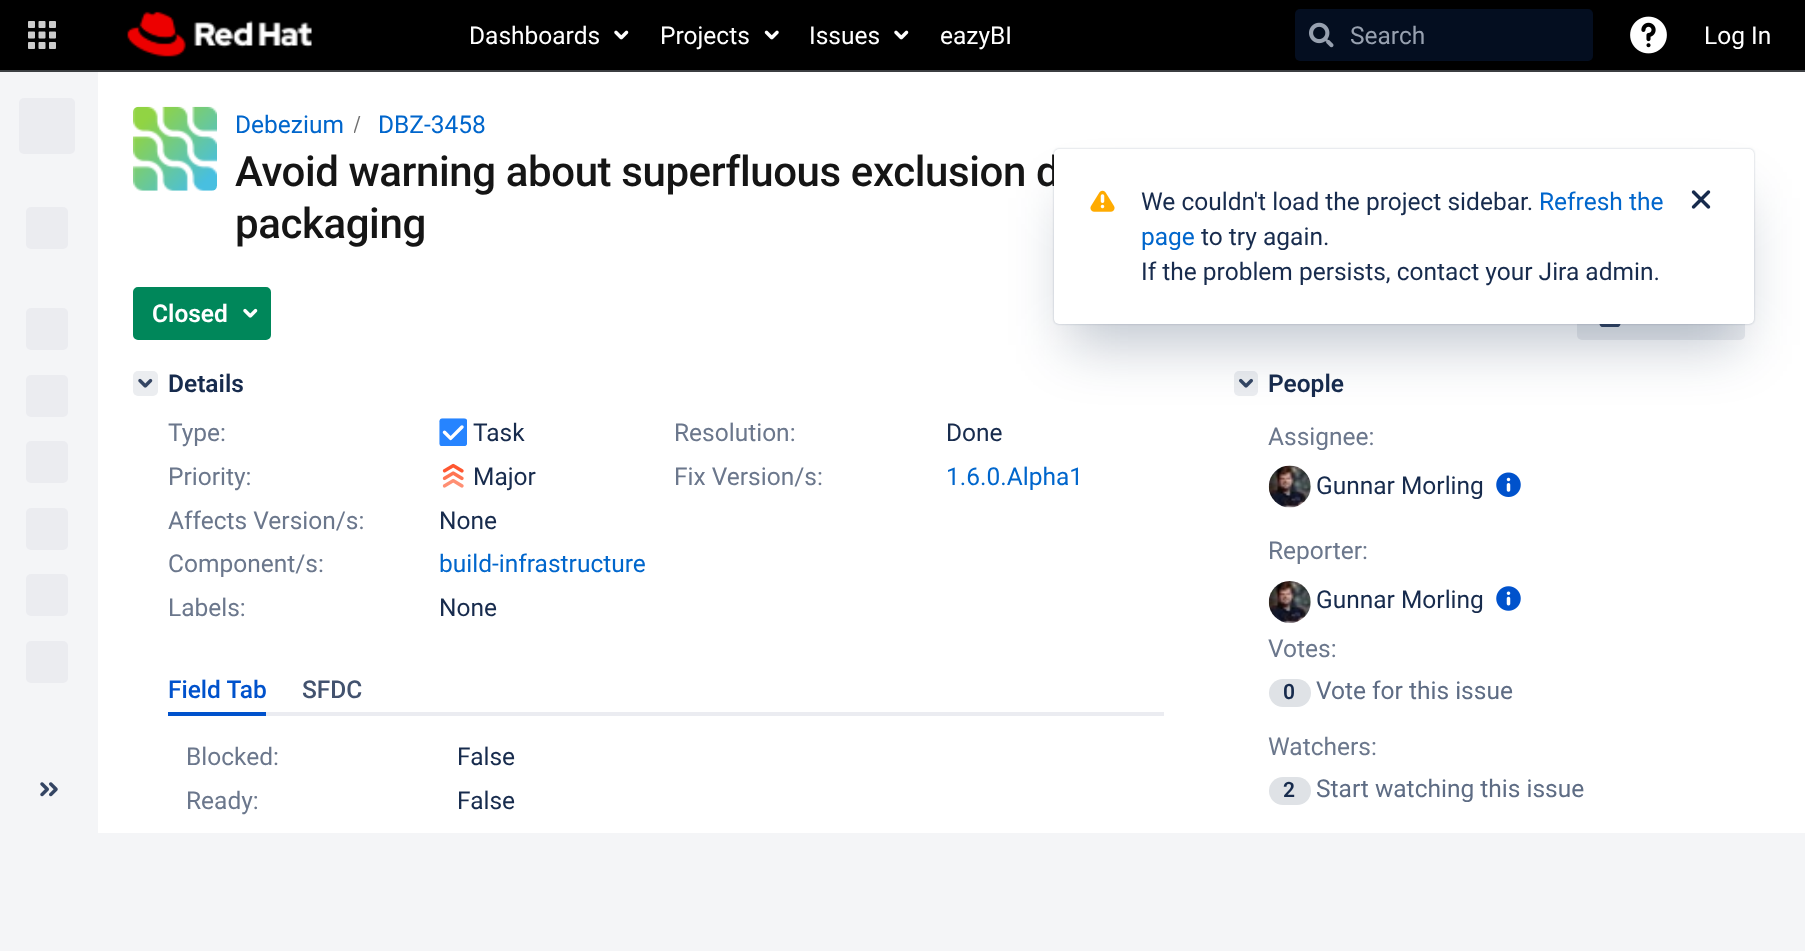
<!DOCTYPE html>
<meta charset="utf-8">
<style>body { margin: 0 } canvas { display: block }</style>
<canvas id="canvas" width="1805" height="951"></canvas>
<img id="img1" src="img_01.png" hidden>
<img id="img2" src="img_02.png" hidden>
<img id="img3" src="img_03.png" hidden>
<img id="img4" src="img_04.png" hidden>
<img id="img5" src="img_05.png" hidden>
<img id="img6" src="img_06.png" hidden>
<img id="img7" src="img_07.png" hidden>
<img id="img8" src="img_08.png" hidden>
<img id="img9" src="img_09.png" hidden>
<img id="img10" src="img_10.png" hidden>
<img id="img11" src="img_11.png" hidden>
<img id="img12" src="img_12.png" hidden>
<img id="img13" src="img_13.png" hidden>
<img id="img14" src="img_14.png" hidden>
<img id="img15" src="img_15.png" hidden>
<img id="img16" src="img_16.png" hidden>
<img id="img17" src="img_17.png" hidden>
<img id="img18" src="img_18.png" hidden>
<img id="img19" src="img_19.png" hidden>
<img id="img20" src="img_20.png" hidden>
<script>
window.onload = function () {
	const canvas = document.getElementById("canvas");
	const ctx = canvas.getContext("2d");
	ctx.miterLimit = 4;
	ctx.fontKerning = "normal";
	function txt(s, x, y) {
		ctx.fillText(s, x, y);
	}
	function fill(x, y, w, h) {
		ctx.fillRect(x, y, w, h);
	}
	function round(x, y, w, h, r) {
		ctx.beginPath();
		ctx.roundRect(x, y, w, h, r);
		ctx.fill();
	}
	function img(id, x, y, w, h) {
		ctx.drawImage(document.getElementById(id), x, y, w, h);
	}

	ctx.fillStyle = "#F4F5F7";
	fill(0, 0, 1805, 951);
	ctx.fillStyle = "#000000";
	fill(0, 0, 1805, 70);
	ctx.fillStyle = "#3C3F42";
	fill(0, 70, 1805, 2);
	img("img1", 28, 21, 28, 28);
	img("img2", 127, 11, 185, 46);
	img("img3", 614, 30, 15, 10);
	img("img4", 764, 30, 15, 10);
	img("img3", 894, 30, 15, 10);
	ctx.fillStyle = "#040E20";
	round(1295, 9, 298, 52, 5);
	img("img5", 1309, 22, 25, 26);
	img("img6", 1630, 16, 37, 38);
	ctx.fillStyle = "#EBECF0";
	round(19, 98, 56, 56, 5);
	round(26, 207, 42, 42, 5);
	round(26, 308, 42, 42, 5);
	round(26, 375, 42, 42, 5);
	round(26, 441, 42, 42, 5);
	round(26, 508, 42, 42, 5);
	round(26, 574, 42, 42, 5);
	round(26, 641, 42, 42, 5);
	img("img7", 40, 782, 18, 15);
	ctx.fillStyle = "#FFFFFF";
	fill(98, 72, 1707, 761);
	img("img8", 133, 106, 84, 85);
	ctx.save();
	ctx.beginPath();
	ctx.rect(354, 116, 7, 17);
	ctx.clip();
	ctx.fillStyle = "#707070";
	ctx.beginPath();
	ctx.moveTo(355, 133);
	ctx.lineTo(360.5, 115.5);
	ctx.lineTo(359, 115.5);
	ctx.lineTo(353.5, 133);
	ctx.closePath();
	ctx.fill();
	ctx.restore();
	ctx.fillStyle = "#00875A";
	ctx.beginPath();
	ctx.roundRect(134, 288, 136, 51, 4);
	ctx.fill();
	ctx.strokeStyle = "#00875A";
	ctx.lineWidth = 2;
	ctx.stroke();
	img("img9", 243, 308, 15, 10);
	ctx.fillStyle = "#EBEDF0";
	round(1577, 287, 168, 53, 5);
	img("img10", 1599, 324, 22, 3);
	round(133, 371, 25, 25, 5);
	img("img11", 138, 378, 15, 10);
	img("img12", 439, 418, 28, 28);
	img("img13", 442, 463, 22, 25);
	ctx.fillStyle = "#0052CC";
	fill(168, 712, 98, 4);
	ctx.fillStyle = "#EBECF1";
	fill(266, 712, 898, 4);
	ctx.fillStyle = "#EBEDF0";
	round(1234, 371, 24, 25, 5);
	img("img14", 1239, 378, 14, 10);
	img("img15", 1268, 465, 43, 43);
	img("img16", 1496, 472, 25, 25);
	img("img17", 1268, 581, 43, 42);
	img("img18", 1496, 586, 25, 25);
	ctx.fillStyle = "#DFE2E6";
	round(1269, 679, 42, 28, 14);
	round(1269, 777, 42, 28, 14);
	ctx.fillStyle = "rgba(9, 30, 66, 0.25)";
	ctx.filter = "blur(1px)";
	ctx.beginPath();
	ctx.roundRect(1054, 149, 700, 175, 5);
	ctx.fill();
	ctx.filter = "none";
	ctx.filter = "blur(28px)";
	ctx.beginPath();
	ctx.rect(1068, 198, 672, 147);
	ctx.fill();
	ctx.filter = "none";
	ctx.font = "24.5px Roboto";
	ctx.fillStyle = "#FFFFFF";
	txt("Dashboards", 469, 44);
	txt("Projects", 660, 44);
	txt("Issues", 809, 44);
	txt("eazyBI", 940, 44);
	ctx.fillStyle = "#97A0AF";
	txt("Search", 1350, 44);
	ctx.fillStyle = "#FFFFFF";
	txt("Log In", 1704, 44);
	ctx.fillStyle = "#0066CC";
	txt("Debezium", 235, 133);
	txt("DBZ-3458", 378, 133);
	ctx.letterSpacing = "-0.4px";
	ctx.font = "500 42px Roboto";
	ctx.fillStyle = "#151515";
	txt("Avoid warning about superfluous exclusion d", 235, 186);
	txt("packaging", 235, 238);
	ctx.letterSpacing = "0px";
	ctx.font = "600 24.5px Roboto";
	ctx.fillStyle = "#FFFFFF";
	txt("Closed", 152, 322);
	ctx.fillStyle = "#172B4D";
	txt("Details", 168, 392);
	ctx.font = "24.5px Roboto";
	ctx.fillStyle = "#6B778C";
	txt("Type:", 168, 441);
	ctx.fillStyle = "#172B4D";
	txt("Task", 473, 441);
	ctx.fillStyle = "#6B778C";
	txt("Resolution:", 674, 441);
	ctx.fillStyle = "#172B4D";
	txt("Done", 946, 441);
	ctx.fillStyle = "#6B778C";
	txt("Priority:", 168, 485);
	ctx.fillStyle = "#172B4D";
	txt("Major", 473, 485);
	ctx.fillStyle = "#6B778C";
	txt("Fix Version/s:", 674, 485);
	ctx.fillStyle = "#0066CC";
	txt("1.6.0.Alpha1", 946, 485);
	ctx.fillStyle = "#6B778C";
	txt("Affects Version/s:", 168, 529);
	ctx.fillStyle = "#172B4D";
	txt("None", 439, 529);
	ctx.fillStyle = "#6B778C";
	txt("Component/s:", 168, 572);
	ctx.fillStyle = "#0066CC";
	txt("build-infrastructure", 439, 572);
	ctx.fillStyle = "#6B778C";
	txt("Labels:", 168, 616);
	ctx.fillStyle = "#172B4D";
	txt("None", 439, 616);
	ctx.font = "500 24.5px Roboto";
	ctx.fillStyle = "#0052CC";
	txt("Field Tab", 168, 698);
	ctx.fillStyle = "#42526E";
	txt("SFDC", 302, 698);
	ctx.font = "24.5px Roboto";
	ctx.fillStyle = "#6B778C";
	txt("Blocked:", 186, 765);
	ctx.fillStyle = "#172B4D";
	txt("False", 457, 765);
	ctx.fillStyle = "#6B778C";
	txt("Ready:", 186, 809);
	ctx.fillStyle = "#172B4D";
	txt("False", 457, 809);
	ctx.font = "600 24.5px Roboto";
	txt("People", 1268, 392);
	ctx.font = "24.5px Roboto";
	ctx.fillStyle = "#6B778C";
	txt("Assignee:", 1268, 445);
	ctx.fillStyle = "#172B4D";
	txt("Gunnar Morling", 1316, 494);
	ctx.fillStyle = "#6B778C";
	txt("Reporter:", 1268, 559);
	ctx.fillStyle = "#172B4D";
	txt("Gunnar Morling", 1316, 608);
	ctx.fillStyle = "#6B778C";
	txt("Votes:", 1268, 657);
	ctx.font = "600 21px Roboto";
	ctx.fillStyle = "#172B4D";
	txt("0", 1283, 699);
	ctx.font = "24.5px Roboto";
	ctx.fillStyle = "#5E6C84";
	txt("Vote for this issue", 1316, 699);
	ctx.fillStyle = "#6B778C";
	txt("Watchers:", 1268, 755);
	ctx.font = "600 21px Roboto";
	ctx.fillStyle = "#172B4D";
	txt("2", 1283, 797);
	ctx.font = "24.5px Roboto";
	ctx.fillStyle = "#5E6C84";
	txt("Start watching this issue", 1316, 797);
	ctx.fillStyle = "#FFFFFF";
	round(1054, 149, 700, 175, 5);
	img("img19", 1090, 190, 25, 22);
	ctx.fillStyle = "#172B4D";
	txt("We couldn't load the project sidebar.", 1141, 210);
	ctx.fillStyle = "#0066CC";
	txt("Refresh the", 1539, 210);
	img("img20", 1691, 190, 20, 19);
	txt("page", 1141, 245);
	ctx.fillStyle = "#172B4D";
	txt("to try again.", 1201, 245);
	txt("If the problem persists, contact your Jira admin.", 1141, 280);
};
</script>
